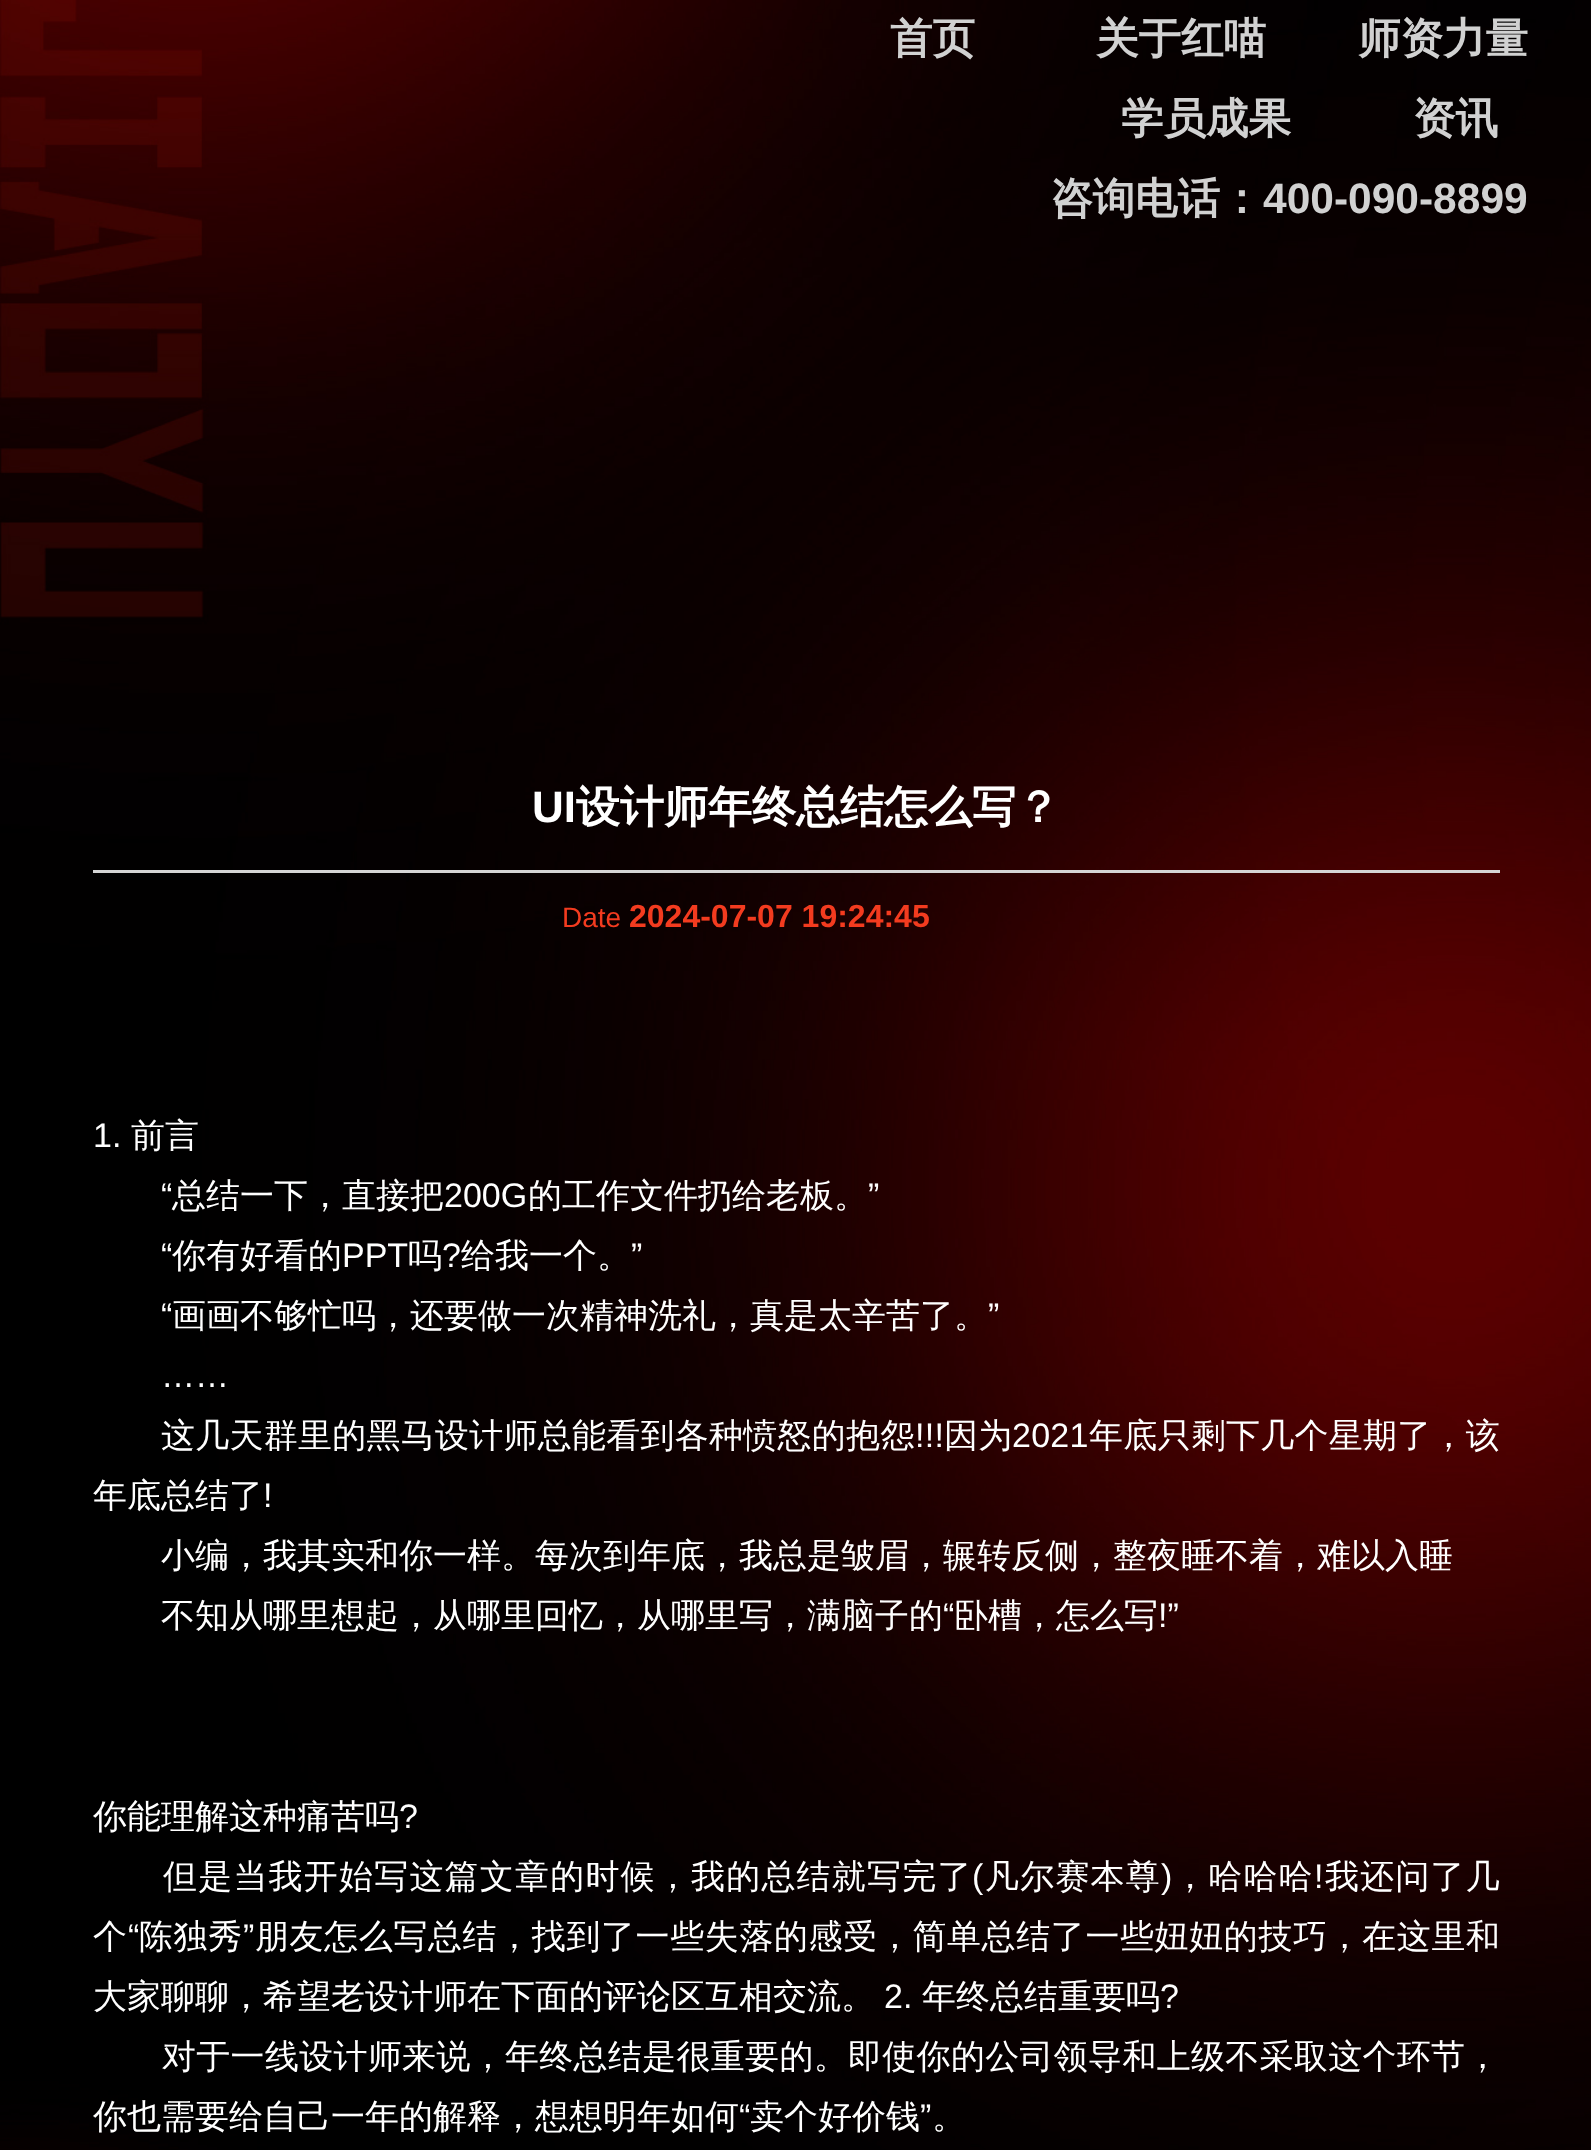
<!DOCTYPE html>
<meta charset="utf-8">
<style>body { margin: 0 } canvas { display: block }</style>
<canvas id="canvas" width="1591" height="2150"></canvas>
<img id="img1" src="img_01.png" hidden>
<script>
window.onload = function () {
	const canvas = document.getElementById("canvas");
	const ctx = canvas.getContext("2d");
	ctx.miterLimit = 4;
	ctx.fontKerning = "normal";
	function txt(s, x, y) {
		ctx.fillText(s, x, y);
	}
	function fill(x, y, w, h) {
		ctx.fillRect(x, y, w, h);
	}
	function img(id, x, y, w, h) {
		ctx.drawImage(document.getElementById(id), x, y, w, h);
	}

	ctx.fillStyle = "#FFFFFF";
	fill(0, 0, 1591, 2150);
	img("img1", 0, 0, 1591, 2150);
	ctx.fillStyle = "#D5D5D5";
	fill(93, 870, 1407, 3);
	ctx.font = "bold 42.5px WenQuanYi Zen Hei";
	ctx.fillStyle = "#D1D1D1";
	txt("首页", 890, 53);
	txt("关于红喵", 1096, 53);
	txt("师资力量", 1358, 53);
	txt("学员成果", 1121, 133);
	txt("资讯", 1413, 133);
	txt("咨询电话：", 1050, 213);
	ctx.font = "bold 42.5px Liberation Sans";
	txt("400-090-8899", 1263, 213);
	ctx.font = "bold 44px Liberation Sans";
	ctx.fillStyle = "#FFFFFF";
	txt("UI", 532, 822);
	ctx.font = "bold 44px WenQuanYi Zen Hei";
	txt("设计师年终总结怎么写？", 576, 822);
	ctx.font = "28px Liberation Sans";
	ctx.fillStyle = "#F33B1F";
	txt("Date", 562, 927);
	ctx.font = "bold 32px Liberation Sans";
	txt("2024-07-07 19:24:45", 629, 927);
	ctx.font = "34px Liberation Sans";
	ctx.fillStyle = "#FFFFFF";
	txt("1.", 93, 1147);
	ctx.font = "500 34px WenQuanYi Zen Hei";
	txt("前言", 131, 1147);
	ctx.font = "34px Liberation Sans";
	txt("“", 161, 1207);
	ctx.font = "500 34px WenQuanYi Zen Hei";
	txt("总结一下，直接把", 172, 1207);
	ctx.font = "34px Liberation Sans";
	txt("200G", 444, 1207);
	ctx.font = "500 34px WenQuanYi Zen Hei";
	txt("的工作文件扔给老板。", 528, 1207);
	ctx.font = "34px Liberation Sans";
	txt("”", 868, 1207);
	txt("“", 161, 1267);
	ctx.font = "500 34px WenQuanYi Zen Hei";
	txt("你有好看的", 172, 1267);
	ctx.font = "34px Liberation Sans";
	txt("PPT", 342, 1267);
	ctx.font = "500 34px WenQuanYi Zen Hei";
	txt("吗", 408, 1267);
	ctx.font = "34px Liberation Sans";
	txt("?", 442, 1267);
	ctx.font = "500 34px WenQuanYi Zen Hei";
	txt("给我一个。", 461, 1267);
	ctx.font = "34px Liberation Sans";
	txt("”", 631, 1267);
	txt("“", 161, 1327);
	ctx.font = "500 34px WenQuanYi Zen Hei";
	txt("画画不够忙吗，还要做一次精神洗礼，真是太辛苦了。", 172, 1327);
	ctx.font = "34px Liberation Sans";
	txt("”", 988, 1327);
	txt("……", 161, 1387);
	ctx.letterSpacing = "0.25px";
	ctx.font = "500 34px WenQuanYi Zen Hei";
	txt("这几天群里的黑马设计师总能看到各种愤怒的抱怨", 161, 1447);
	ctx.font = "34px Liberation Sans";
	txt("!!!", 915, 1447);
	ctx.font = "500 34px WenQuanYi Zen Hei";
	txt("因为", 944, 1447);
	ctx.font = "34px Liberation Sans";
	txt("2021", 1012, 1447);
	ctx.font = "500 34px WenQuanYi Zen Hei";
	txt("年底只剩下几个星期了，该", 1089, 1447);
	ctx.letterSpacing = "0px";
	txt("年底总结了", 93, 1507);
	ctx.font = "34px Liberation Sans";
	txt("!", 263, 1507);
	ctx.font = "500 34px WenQuanYi Zen Hei";
	txt("小编，我其实和你一样。每次到年底，我总是皱眉，辗转反侧，整夜睡不着，难以入睡", 161, 1567);
	txt("不知从哪里想起，从哪里回忆，从哪里写，满脑子的", 161, 1627);
	ctx.font = "34px Liberation Sans";
	txt("“", 943, 1627);
	ctx.font = "500 34px WenQuanYi Zen Hei";
	txt("卧槽，怎么写", 954, 1627);
	ctx.font = "34px Liberation Sans";
	txt("!”", 1158, 1627);
	ctx.font = "500 34px WenQuanYi Zen Hei";
	txt("你能理解这种痛苦吗", 93, 1828);
	ctx.font = "34px Liberation Sans";
	txt("?", 399, 1828);
	ctx.letterSpacing = "1.2px";
	ctx.font = "500 34px WenQuanYi Zen Hei";
	txt("但是当我开始写这篇文章的时候，我的总结就写完了", 163, 1888);
	ctx.font = "34px Liberation Sans";
	txt("(", 972, 1888);
	ctx.font = "500 34px WenQuanYi Zen Hei";
	txt("凡尔赛本尊", 985, 1888);
	ctx.font = "34px Liberation Sans";
	txt(")", 1161, 1888);
	ctx.font = "500 34px WenQuanYi Zen Hei";
	txt("，哈哈哈", 1173, 1888);
	ctx.font = "34px Liberation Sans";
	txt("!", 1314, 1888);
	ctx.font = "500 34px WenQuanYi Zen Hei";
	txt("我还问了几", 1325, 1888);
	ctx.letterSpacing = "0.6px";
	txt("个", 93, 1948);
	ctx.font = "34px Liberation Sans";
	txt("“", 128, 1948);
	ctx.font = "500 34px WenQuanYi Zen Hei";
	txt("陈独秀", 139, 1948);
	ctx.font = "34px Liberation Sans";
	txt("”", 243, 1948);
	ctx.font = "500 34px WenQuanYi Zen Hei";
	txt("朋友怎么写总结，找到了一些失落的感受，简单总结了一些妞妞的技巧，在这里和", 255, 1948);
	ctx.letterSpacing = "0px";
	txt("大家聊聊，希望老设计师在下面的评论区互相交流。", 93, 2008);
	ctx.font = "34px Liberation Sans";
	txt("2.", 884, 2008);
	ctx.font = "500 34px WenQuanYi Zen Hei";
	txt("年终总结重要吗", 922, 2008);
	ctx.font = "34px Liberation Sans";
	txt("?", 1160, 2008);
	ctx.letterSpacing = "0.3px";
	ctx.font = "500 34px WenQuanYi Zen Hei";
	txt("对于一线设计师来说，年终总结是很重要的。即使你的公司领导和上级不采取这个环节，", 162, 2068);
	ctx.letterSpacing = "0px";
	txt("你也需要给自己一年的解释，想想明年如何", 93, 2128);
	ctx.font = "34px Liberation Sans";
	txt("“", 739, 2128);
	ctx.font = "500 34px WenQuanYi Zen Hei";
	txt("卖个好价钱", 750, 2128);
	ctx.font = "34px Liberation Sans";
	txt("”", 920, 2128);
	ctx.font = "500 34px WenQuanYi Zen Hei";
	txt("。", 932, 2128);
};
</script>
